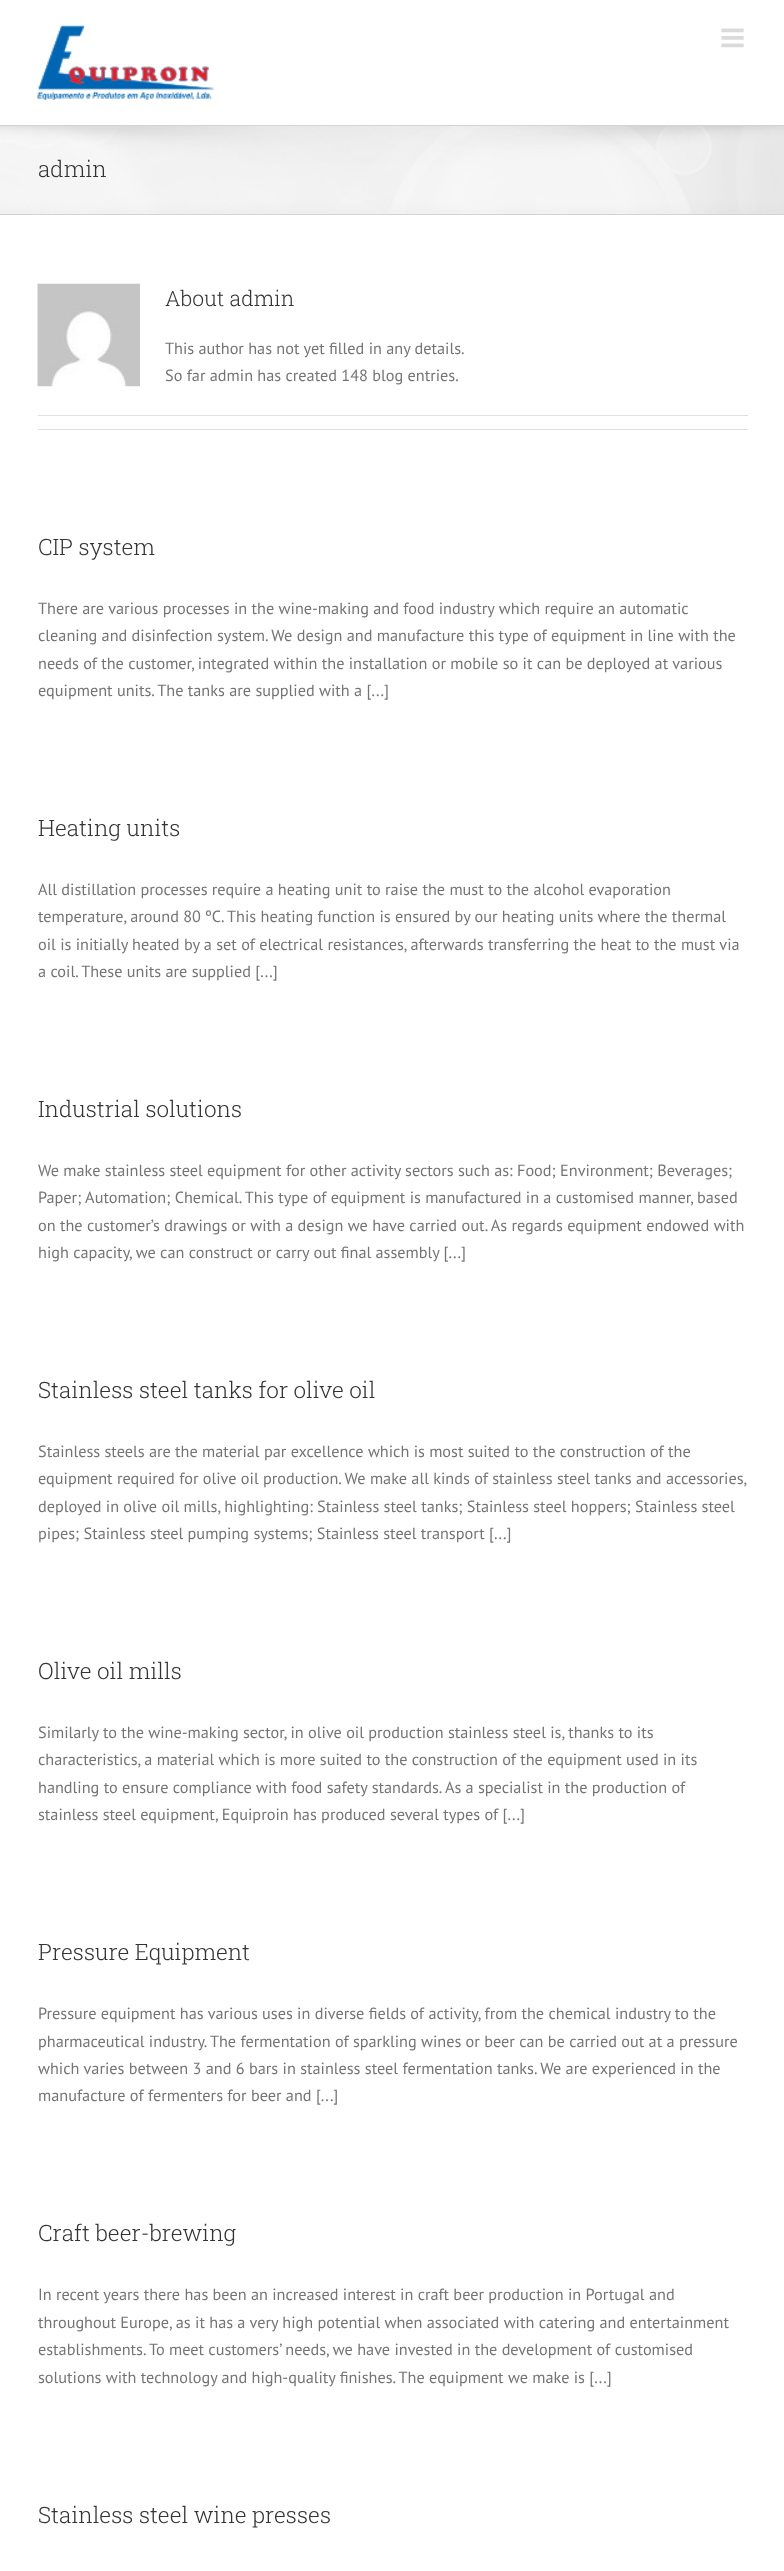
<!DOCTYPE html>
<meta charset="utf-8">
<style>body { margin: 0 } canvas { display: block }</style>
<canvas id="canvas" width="784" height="2571"></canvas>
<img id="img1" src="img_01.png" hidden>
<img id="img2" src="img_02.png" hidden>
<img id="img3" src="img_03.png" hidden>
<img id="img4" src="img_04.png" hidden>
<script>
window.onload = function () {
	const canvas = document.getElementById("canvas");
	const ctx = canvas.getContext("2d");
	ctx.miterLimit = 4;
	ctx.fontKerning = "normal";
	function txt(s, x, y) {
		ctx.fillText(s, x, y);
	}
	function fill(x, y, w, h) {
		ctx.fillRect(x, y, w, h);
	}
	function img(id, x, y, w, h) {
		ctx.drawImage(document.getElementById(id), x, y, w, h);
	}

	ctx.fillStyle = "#FFFFFF";
	fill(0, 0, 784, 2571);
	img("img1", 37, 25, 177, 75);
	img("img2", 721, 28, 23, 20);
	ctx.fillStyle = "#F6F6F6";
	fill(0, 126, 784, 88);
	img("img3", 0, 126, 784, 88);
	ctx.fillStyle = "#D2D3D4";
	fill(0, 125, 784, 1);
	fill(0, 214, 784, 1);
	img("img4", 37, 283, 103, 104);
	ctx.fillStyle = "#E0DEDE";
	fill(38, 415, 710, 1);
	fill(38, 429, 710, 1);
	ctx.font = "300 22.5px Roboto Slab";
	ctx.fillStyle = "#333333";
	txt("admin", 38, 177);
	ctx.font = "300 21.25px Roboto Slab";
	txt("About admin", 165, 306);
	ctx.font = "16.25px PT Sans";
	ctx.fillStyle = "#747474";
	txt("This author has not yet filled in any details.", 165, 354);
	txt("So far admin has created 148 blog entries.", 165, 381);
	ctx.font = "300 22.5px Roboto Slab";
	ctx.fillStyle = "#333333";
	txt("CIP system", 38, 555);
	ctx.font = "16.25px PT Sans";
	ctx.fillStyle = "#747474";
	txt("There are various processes in the wine-making and food industry which require an automatic", 38, 614);
	txt("cleaning and disinfection system. We design and manufacture this type of equipment in line with the", 38, 641);
	txt("needs of the customer, integrated within the installation or mobile so it can be deployed at various", 38, 669);
	txt("equipment units. The tanks are supplied with a [...]", 38, 696);
	ctx.font = "300 22.5px Roboto Slab";
	ctx.fillStyle = "#333333";
	txt("Heating units", 38, 836);
	ctx.font = "16.25px PT Sans";
	ctx.fillStyle = "#747474";
	txt("All distillation processes require a heating unit to raise the must to the alcohol evaporation", 38, 895);
	txt("temperature, around 80 ºC. This heating function is ensured by our heating units where the thermal", 38, 922);
	txt("oil is initially heated by a set of electrical resistances, afterwards transferring the heat to the must via", 38, 950);
	txt("a coil. These units are supplied [...]", 38, 977);
	ctx.font = "300 22.5px Roboto Slab";
	ctx.fillStyle = "#333333";
	txt("Industrial solutions", 38, 1117);
	ctx.font = "16.25px PT Sans";
	ctx.fillStyle = "#747474";
	txt("We make stainless steel equipment for other activity sectors such as: Food; Environment; Beverages;", 38, 1176);
	txt("Paper; Automation; Chemical. This type of equipment is manufactured in a customised manner, based", 38, 1203);
	txt("on the customer’s drawings or with a design we have carried out. As regards equipment endowed with", 38, 1231);
	txt("high capacity, we can construct or carry out final assembly [...]", 38, 1258);
	ctx.font = "300 22.5px Roboto Slab";
	ctx.fillStyle = "#333333";
	txt("Stainless steel tanks for olive oil", 38, 1398);
	ctx.font = "16.25px PT Sans";
	ctx.fillStyle = "#747474";
	txt("Stainless steels are the material par excellence which is most suited to the construction of the", 38, 1457);
	txt("equipment required for olive oil production. We make all kinds of stainless steel tanks and accessories,", 38, 1484);
	txt("deployed in olive oil mills, highlighting: Stainless steel tanks; Stainless steel hoppers; Stainless steel", 38, 1512);
	txt("pipes; Stainless steel pumping systems; Stainless steel transport [...]", 38, 1539);
	ctx.font = "300 22.5px Roboto Slab";
	ctx.fillStyle = "#333333";
	txt("Olive oil mills", 38, 1679);
	ctx.font = "16.25px PT Sans";
	ctx.fillStyle = "#747474";
	txt("Similarly to the wine-making sector, in olive oil production stainless steel is, thanks to its", 38, 1738);
	txt("characteristics, a material which is more suited to the construction of the equipment used in its", 38, 1765);
	txt("handling to ensure compliance with food safety standards. As a specialist in the production of", 38, 1793);
	txt("stainless steel equipment, Equiproin has produced several types of [...]", 38, 1820);
	ctx.font = "300 22.5px Roboto Slab";
	ctx.fillStyle = "#333333";
	txt("Pressure Equipment", 38, 1960);
	ctx.font = "16.25px PT Sans";
	ctx.fillStyle = "#747474";
	txt("Pressure equipment has various uses in diverse fields of activity, from the chemical industry to the", 38, 2019);
	txt("pharmaceutical industry. The fermentation of sparkling wines or beer can be carried out at a pressure", 38, 2047);
	txt("which varies between 3 and 6 bars in stainless steel fermentation tanks. We are experienced in the", 38, 2074);
	txt("manufacture of fermenters for beer and [...]", 38, 2101);
	ctx.font = "300 22.5px Roboto Slab";
	ctx.fillStyle = "#333333";
	txt("Craft beer-brewing", 38, 2241);
	ctx.font = "16.25px PT Sans";
	ctx.fillStyle = "#747474";
	txt("In recent years there has been an increased interest in craft beer production in Portugal and", 38, 2300);
	txt("throughout Europe, as it has a very high potential when associated with catering and entertainment", 38, 2328);
	txt("establishments. To meet customers’ needs, we have invested in the development of customised", 38, 2355);
	txt("solutions with technology and high-quality finishes. The equipment we make is [...]", 38, 2383);
	ctx.font = "300 22.5px Roboto Slab";
	ctx.fillStyle = "#333333";
	txt("Stainless steel wine presses", 38, 2523);
};
</script>
